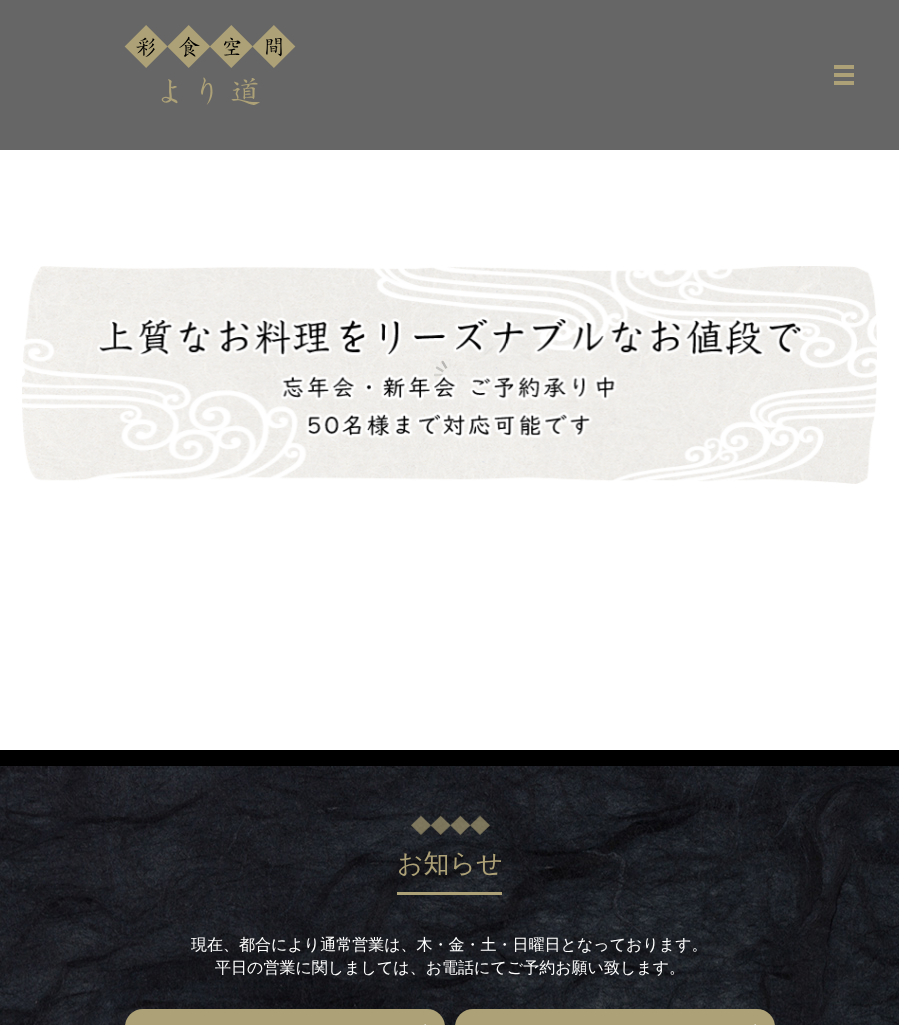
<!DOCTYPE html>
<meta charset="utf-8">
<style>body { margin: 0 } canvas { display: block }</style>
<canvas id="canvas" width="899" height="1025"></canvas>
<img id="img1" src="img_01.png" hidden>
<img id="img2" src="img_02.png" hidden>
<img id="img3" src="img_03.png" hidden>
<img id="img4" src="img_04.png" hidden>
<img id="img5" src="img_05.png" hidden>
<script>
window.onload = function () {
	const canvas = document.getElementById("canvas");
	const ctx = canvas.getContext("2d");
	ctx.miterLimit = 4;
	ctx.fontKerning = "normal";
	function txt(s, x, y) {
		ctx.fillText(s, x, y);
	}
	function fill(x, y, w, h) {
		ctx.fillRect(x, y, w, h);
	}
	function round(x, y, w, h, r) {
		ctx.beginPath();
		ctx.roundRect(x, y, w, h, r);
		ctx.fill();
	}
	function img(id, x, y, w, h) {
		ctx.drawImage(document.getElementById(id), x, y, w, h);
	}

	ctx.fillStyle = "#000000";
	fill(0, 0, 899, 1025);
	ctx.fillStyle = "#666666";
	fill(0, 0, 899, 150);
	img("img1", 124, 25, 172, 80);
	ctx.fillStyle = "#ADA177";
	fill(834, 65, 20, 4);
	fill(834, 73, 20, 4);
	fill(834, 81, 20, 4);
	ctx.fillStyle = "#FFFFFF";
	fill(0, 150, 899, 600);
	img("img2", 434, 359, 32, 32);
	img("img3", 22, 266, 855, 218);
	img("img4", 0, 766, 899, 259);
	ctx.fillStyle = "#ADA177";
	fill(397, 892, 105, 3);
	img("img5", 411, 815, 79, 20);
	round(125, 1009, 320, 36, 20);
	ctx.fillStyle = "#FFFFFF";
	ctx.beginPath();
	ctx.moveTo(425, 1024);
	ctx.lineTo(430, 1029);
	ctx.lineTo(429, 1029.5);
	ctx.lineTo(424.5, 1024.5);
	ctx.closePath();
	ctx.fill();
	ctx.fillStyle = "#ADA177";
	round(455, 1009, 320, 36, 20);
	ctx.fillStyle = "#FFFFFF";
	ctx.beginPath();
	ctx.moveTo(755, 1024);
	ctx.lineTo(760, 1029);
	ctx.lineTo(759, 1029.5);
	ctx.lineTo(754.5, 1024.5);
	ctx.closePath();
	ctx.fill();
	ctx.font = "500 26px WenQuanYi Zen Hei";
	ctx.fillStyle = "#ADA177";
	txt("お知らせ", 397, 872);
	ctx.font = "500 16px WenQuanYi Zen Hei";
	ctx.fillStyle = "#FFFFFF";
	txt("現在、都合により通常営業は、木・金・土・日曜日となっております。", 191, 950);
	txt("平日の営業に関しましては、お電話にてご予約お願い致します。", 215, 973);
};
</script>
